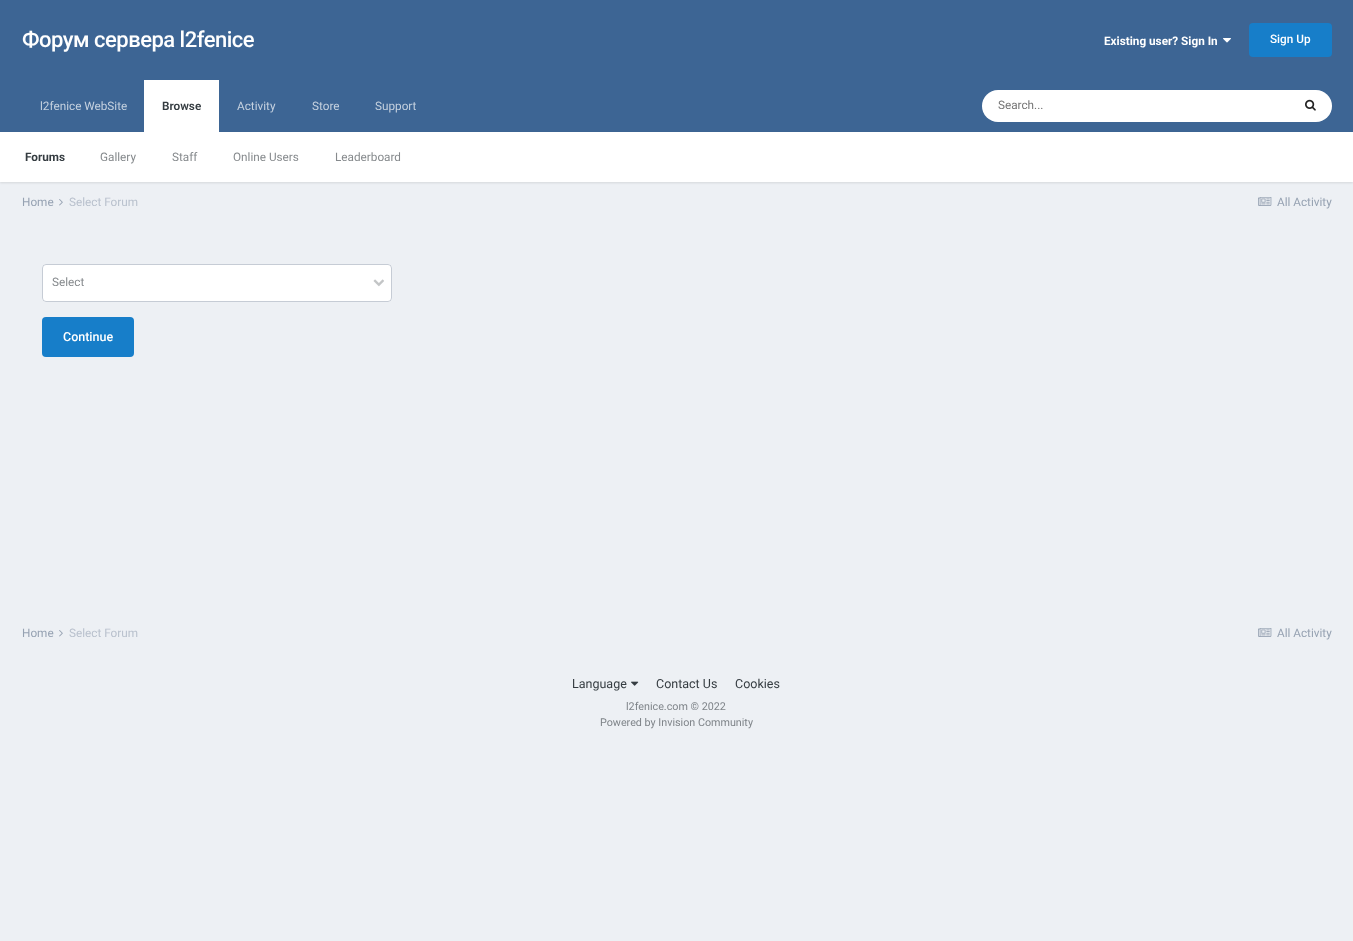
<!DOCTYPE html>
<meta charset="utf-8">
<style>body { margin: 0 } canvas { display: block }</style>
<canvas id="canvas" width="1353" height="941"></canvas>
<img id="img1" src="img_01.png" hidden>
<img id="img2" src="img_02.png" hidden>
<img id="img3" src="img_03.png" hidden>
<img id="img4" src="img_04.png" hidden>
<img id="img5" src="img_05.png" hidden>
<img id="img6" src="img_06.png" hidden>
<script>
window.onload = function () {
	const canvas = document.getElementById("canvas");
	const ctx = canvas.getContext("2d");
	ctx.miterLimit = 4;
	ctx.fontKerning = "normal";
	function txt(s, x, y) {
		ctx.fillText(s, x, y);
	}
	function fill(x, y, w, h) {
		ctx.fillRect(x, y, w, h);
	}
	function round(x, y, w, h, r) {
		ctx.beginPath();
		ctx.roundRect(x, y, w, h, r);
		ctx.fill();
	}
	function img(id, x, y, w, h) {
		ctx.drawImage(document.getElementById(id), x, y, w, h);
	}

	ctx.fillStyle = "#EDF0F4";
	fill(0, 0, 1353, 941);
	ctx.fillStyle = "#3D6594";
	fill(0, 0, 1353, 132);
	img("img1", 1223, 38, 8, 5);
	ctx.fillStyle = "#177EC9";
	round(1249, 23, 83, 34, 4);
	ctx.fillStyle = "rgba(0, 0, 0, 0.1)";
	ctx.filter = "blur(1px)";
	ctx.beginPath();
	ctx.rect(0, 133, 1353, 50);
	ctx.fill();
	ctx.filter = "none";
	ctx.fillStyle = "#FFFFFF";
	fill(144, 80, 75, 52);
	round(982, 90, 350, 32, 16);
	img("img2", 1305, 99, 11, 12);
	fill(0, 132, 1353, 50);
	img("img3", 59, 199, 4, 7);
	img("img4", 1258, 197, 14, 9);
	round(42, 264, 350, 38, 4);
	ctx.beginPath();
	ctx.roundRect(42.5, 264.5, 349, 37, 3.5);
	ctx.strokeStyle = "rgba(113, 128, 150, 0.4)";
	ctx.stroke();
	img("img5", 373, 279, 11, 8);
	ctx.fillStyle = "#177EC9";
	round(42, 317, 92, 40, 4);
	img("img3", 59, 630, 4, 7);
	img("img4", 1258, 628, 14, 9);
	img("img6", 631, 681, 8, 5);
	ctx.letterSpacing = "-0.5px";
	ctx.font = "500 22px Roboto";
	ctx.fillStyle = "#FFFFFF";
	txt("Форум сервера l2fenice", 22, 47);
	ctx.letterSpacing = "0px";
	ctx.font = "bold 11.75px Roboto";
	txt("Existing user? Sign In", 1104, 45);
	ctx.font = "500 11.75px Roboto";
	txt("Sign Up", 1270, 43);
	ctx.font = "600 11.75px Roboto";
	ctx.fillStyle = "#353C41";
	txt("Browse", 162, 110);
	ctx.font = "bold 11.75px Roboto";
	txt("Forums", 25, 161);
	ctx.font = "11.75px Roboto";
	ctx.fillStyle = "#868A8D";
	txt("Gallery", 100, 161);
	txt("Staff", 172, 161);
	txt("Online Users", 233, 161);
	txt("Leaderboard", 335, 161);
	ctx.fillStyle = "#C5D1DF";
	txt("l2fenice WebSite", 40, 110);
	txt("Activity", 237, 110);
	txt("Store", 312, 110);
	txt("Support", 375, 110);
	ctx.fillStyle = "#757575";
	txt("Search...", 998, 109);
	ctx.fillStyle = "#96A2B2";
	txt("Home", 22, 206);
	ctx.fillStyle = "#B9C1CD";
	txt("Select Forum", 69, 206);
	ctx.fillStyle = "#96A2B2";
	txt("All Activity", 1277, 206);
	ctx.fillStyle = "#868A8D";
	txt("Select", 52, 286);
	ctx.font = "500 12.5px Roboto";
	ctx.fillStyle = "#FFFFFF";
	txt("Continue", 63, 341);
	ctx.font = "11.75px Roboto";
	ctx.fillStyle = "#96A2B2";
	txt("Home", 22, 637);
	ctx.fillStyle = "#B9C1CD";
	txt("Select Forum", 69, 637);
	ctx.fillStyle = "#96A2B2";
	txt("All Activity", 1277, 637);
	ctx.font = "12.5px Roboto";
	ctx.fillStyle = "#353C41";
	txt("Language", 572, 688);
	txt("Contact Us", 656, 688);
	txt("Cookies", 735, 688);
	ctx.font = "10.75px Roboto";
	ctx.fillStyle = "#7F8489";
	txt("l2fenice.com © 2022", 626, 710);
	txt("Powered by Invision Community", 600, 726);
};
</script>
